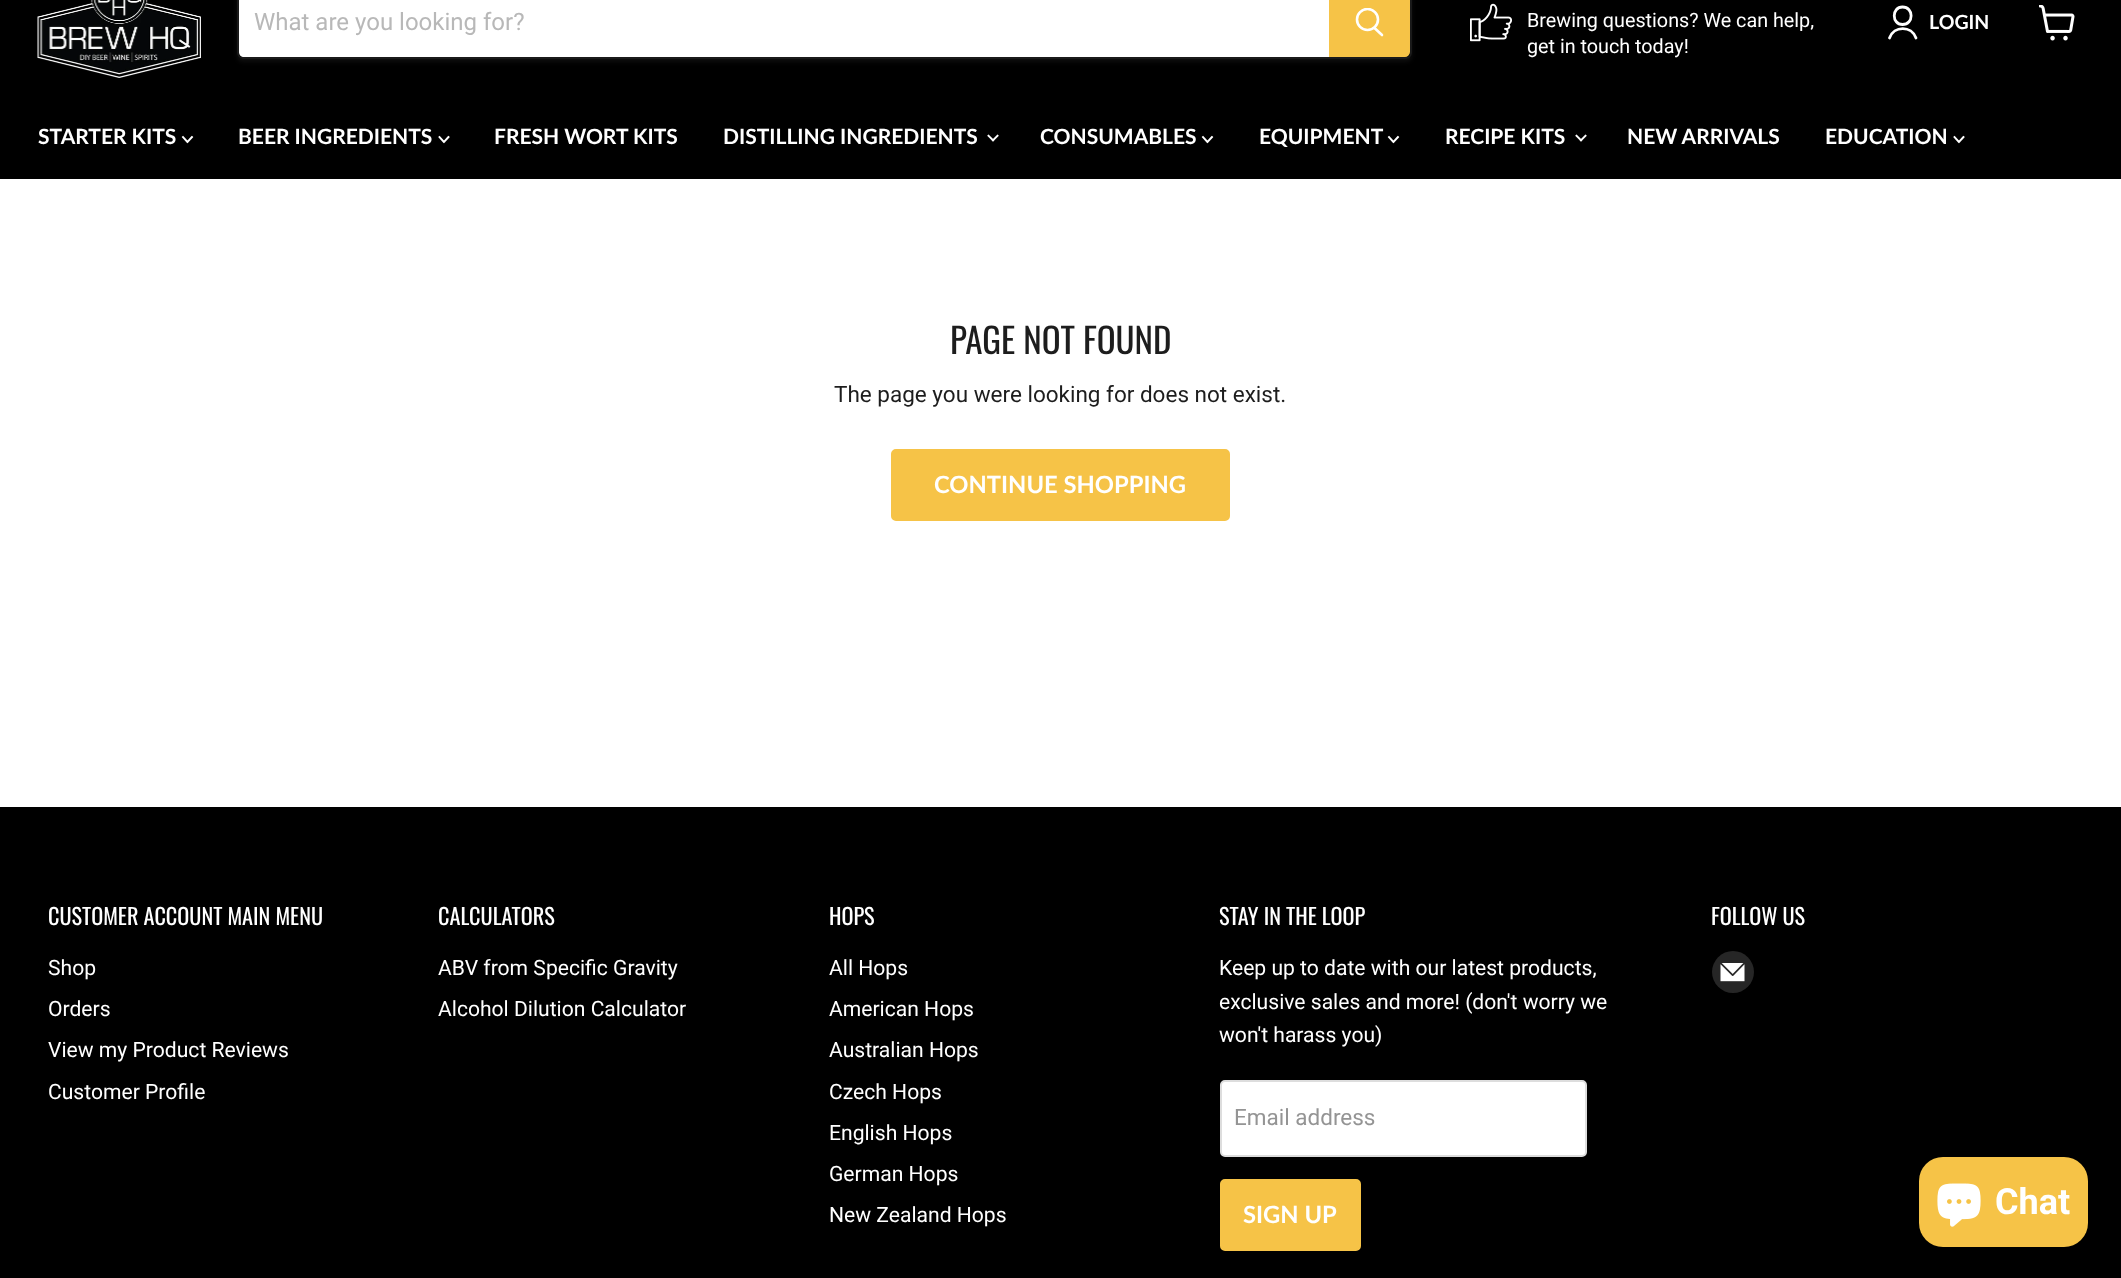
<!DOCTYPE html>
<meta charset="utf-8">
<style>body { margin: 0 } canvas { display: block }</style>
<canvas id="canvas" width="2121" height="1278"></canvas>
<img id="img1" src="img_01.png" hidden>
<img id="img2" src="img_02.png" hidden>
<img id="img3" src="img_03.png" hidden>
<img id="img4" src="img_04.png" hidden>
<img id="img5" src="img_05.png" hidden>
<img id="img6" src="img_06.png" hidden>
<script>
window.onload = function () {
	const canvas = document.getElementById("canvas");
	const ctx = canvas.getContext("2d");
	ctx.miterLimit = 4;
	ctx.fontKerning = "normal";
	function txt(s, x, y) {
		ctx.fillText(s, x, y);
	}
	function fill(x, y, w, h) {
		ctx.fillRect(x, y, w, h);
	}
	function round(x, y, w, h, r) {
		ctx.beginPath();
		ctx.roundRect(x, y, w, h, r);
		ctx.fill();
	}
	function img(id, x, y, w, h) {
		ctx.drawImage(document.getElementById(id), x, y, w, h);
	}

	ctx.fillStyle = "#FFFFFF";
	fill(0, 0, 2121, 1278);
	ctx.fillStyle = "#000000";
	fill(0, 0, 2121, 179);
	img("img1", 37, 0, 164, 78);
	ctx.save();
	ctx.beginPath();
	ctx.moveTo(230, 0);
	ctx.lineTo(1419, 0);
	ctx.lineTo(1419, 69);
	ctx.lineTo(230, 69);
	ctx.closePath();
	ctx.moveTo(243, -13);
	ctx.lineTo(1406, -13);
	ctx.bezierCurveTo(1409.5, -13, 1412, -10.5, 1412, -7);
	ctx.lineTo(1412, 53);
	ctx.bezierCurveTo(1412, 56.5, 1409.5, 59, 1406, 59);
	ctx.lineTo(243, 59);
	ctx.bezierCurveTo(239.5, 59, 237, 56.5, 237, 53);
	ctx.lineTo(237, -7);
	ctx.bezierCurveTo(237, -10.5, 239.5, -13, 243, -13);
	ctx.closePath();
	ctx.clip("evenodd");
	ctx.fillStyle = "rgba(128, 128, 128, 0.11)";
	ctx.filter = "blur(2px)";
	ctx.beginPath();
	ctx.roundRect(237, -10, 1175, 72, 6);
	ctx.fill();
	ctx.filter = "none";
	ctx.restore();
	ctx.beginPath();
	ctx.roundRect(238, -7, 1173, 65, 5);
	ctx.strokeStyle = "rgba(128, 128, 128, 0.2)";
	ctx.lineWidth = 2;
	ctx.stroke();
	ctx.fillStyle = "#FFFFFF";
	ctx.beginPath();
	ctx.moveTo(244, -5);
	ctx.lineTo(1329, -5);
	ctx.lineTo(1329, 57);
	ctx.lineTo(244, 57);
	ctx.bezierCurveTo(241, 57, 239, 55, 239, 52);
	ctx.lineTo(239, 0);
	ctx.bezierCurveTo(239, -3, 241, -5, 244, -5);
	ctx.closePath();
	ctx.fill();
	ctx.fillStyle = "#F6C347";
	ctx.beginPath();
	ctx.moveTo(1330, -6);
	ctx.lineTo(1405, -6);
	ctx.bezierCurveTo(1407, -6, 1409, -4, 1409, -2);
	ctx.lineTo(1409, 52);
	ctx.bezierCurveTo(1409, 54, 1407, 56, 1405, 56);
	ctx.lineTo(1330, 56);
	ctx.closePath();
	ctx.fill();
	ctx.strokeStyle = "#F6C347";
	ctx.stroke();
	ctx.beginPath();
	ctx.moveTo(1382, 35);
	ctx.lineTo(1374.5, 28);
	ctx.strokeStyle = "#FFFFFF";
	ctx.lineWidth = 2.6;
	ctx.lineCap = "round";
	ctx.stroke();
	ctx.save();
	ctx.beginPath();
	ctx.rect(1355, 8, 30, 31);
	ctx.clip();
	ctx.beginPath();
	ctx.arc(1367.5, 19.5, 10.5, 0, Math.PI * 2);
	ctx.stroke();
	ctx.restore();
	img("img2", 1470, 3, 42, 39);
	ctx.beginPath();
	ctx.moveTo(1902.5, 24.5);
	ctx.bezierCurveTo(1914, 24.5, 1914, 7, 1902.5, 7);
	ctx.bezierCurveTo(1891.5, 7, 1891.5, 24.5, 1902.5, 24.5);
	ctx.closePath();
	ctx.moveTo(1916, 38);
	ctx.bezierCurveTo(1911.5, 25.5, 1894, 25.5, 1889.5, 38);
	ctx.lineWidth = 2.8;
	ctx.lineJoin = "round";
	ctx.stroke();
	img("img3", 2039, 5, 36, 36);
	ctx.beginPath();
	ctx.moveTo(187.5, 142);
	ctx.lineTo(192, 137);
	ctx.moveTo(187.5, 142);
	ctx.lineTo(183, 137);
	ctx.lineWidth = 1.9;
	ctx.lineCap = "square";
	ctx.lineJoin = "miter";
	ctx.stroke();
	ctx.beginPath();
	ctx.moveTo(444, 142);
	ctx.lineTo(448.5, 137);
	ctx.moveTo(444, 142);
	ctx.lineTo(439.5, 137);
	ctx.stroke();
	img("img4", 987, 134, 12, 8);
	ctx.beginPath();
	ctx.moveTo(1207.5, 142);
	ctx.lineTo(1212, 137);
	ctx.moveTo(1207.5, 142);
	ctx.lineTo(1203, 137);
	ctx.stroke();
	ctx.beginPath();
	ctx.moveTo(1393.5, 142);
	ctx.lineTo(1398, 137);
	ctx.moveTo(1393.5, 142);
	ctx.lineTo(1389, 137);
	ctx.stroke();
	img("img4", 1575, 134, 12, 8);
	ctx.beginPath();
	ctx.moveTo(1959, 142);
	ctx.lineTo(1963.5, 137);
	ctx.moveTo(1959, 142);
	ctx.lineTo(1954.5, 137);
	ctx.stroke();
	ctx.beginPath();
	ctx.roundRect(892, 450, 337, 70, 4);
	ctx.fill();
	ctx.strokeStyle = "#F6C347";
	ctx.lineWidth = 2;
	ctx.stroke();
	ctx.fillStyle = "#000000";
	fill(0, 807, 2121, 471);
	ctx.fillStyle = "#FFFFFF";
	ctx.beginPath();
	ctx.roundRect(1221, 1081, 365, 75, 4);
	ctx.fill();
	ctx.strokeStyle = "#DDDDDD";
	ctx.stroke();
	ctx.fillStyle = "#F6C347";
	ctx.beginPath();
	ctx.roundRect(1221, 1180, 139, 70, 4);
	ctx.fill();
	ctx.strokeStyle = "#F6C347";
	ctx.stroke();
	ctx.fillStyle = "#262626";
	ctx.beginPath();
	ctx.arc(1733, 972, 21, 0, Math.PI * 2);
	ctx.fill();
	img("img5", 1720, 963, 25, 19);
	ctx.fillStyle = "#F6C347";
	round(1919, 1157, 169, 90, 24);
	img("img6", 1937, 1183, 44, 44);
	ctx.font = "24px Roboto";
	ctx.fillStyle = "#B8B8B8";
	txt("What are you looking for?", 254, 30);
	ctx.font = "19.75px Roboto";
	ctx.fillStyle = "#FFFFFF";
	txt("Brewing questions? We can help,", 1527, 27);
	txt("get in touch today!", 1527, 53);
	ctx.font = "bold 19.5px Lato";
	txt("LOGIN", 1929, 29);
	ctx.font = "bold 21px Lato";
	txt("STARTER KITS", 38, 144);
	txt("BEER INGREDIENTS", 238, 144);
	txt("FRESH WORT KITS", 494, 144);
	txt("DISTILLING INGREDIENTS", 723, 144);
	txt("CONSUMABLES", 1040, 144);
	txt("EQUIPMENT", 1259, 144);
	txt("RECIPE KITS", 1445, 144);
	txt("NEW ARRIVALS", 1627, 144);
	txt("EDUCATION", 1825, 144);
	ctx.font = "35px Oswald";
	ctx.fillStyle = "#1D1D1D";
	txt("PAGE NOT FOUND", 950, 354);
	ctx.font = "22.5px Roboto";
	txt("The page you were looking for does not exist.", 834, 402);
	ctx.font = "bold 23.75px Lato";
	ctx.fillStyle = "#FFFFFF";
	txt("CONTINUE SHOPPING", 934, 493);
	ctx.font = "22.25px Oswald";
	txt("CUSTOMER ACCOUNT MAIN MENU", 48, 925);
	ctx.font = "21.1px Roboto";
	txt("Shop", 48, 975);
	txt("Orders", 48, 1016);
	txt("View my Product Reviews", 48, 1057);
	txt("Customer Profile", 48, 1099);
	ctx.font = "22.25px Oswald";
	txt("CALCULATORS", 438, 925);
	ctx.font = "21.1px Roboto";
	txt("ABV from Specific Gravity", 438, 975);
	txt("Alcohol Dilution Calculator", 438, 1016);
	ctx.font = "22.25px Oswald";
	txt("HOPS", 829, 925);
	ctx.font = "21.1px Roboto";
	txt("All Hops", 829, 975);
	txt("American Hops", 829, 1016);
	txt("Australian Hops", 829, 1057);
	txt("Czech Hops", 829, 1099);
	txt("English Hops", 829, 1140);
	txt("German Hops", 829, 1181);
	txt("New Zealand Hops", 829, 1222);
	ctx.font = "22.25px Oswald";
	txt("STAY IN THE LOOP", 1219, 925);
	ctx.font = "21.1px Roboto";
	txt("Keep up to date with our latest products,", 1219, 975);
	txt("exclusive sales and more! (don't worry we", 1219, 1009);
	txt("won't harass you)", 1219, 1042);
	ctx.font = "22.5px Roboto";
	ctx.fillStyle = "#949494";
	txt("Email address", 1234, 1125);
	ctx.font = "bold 23.75px Lato";
	ctx.fillStyle = "#FFFFFF";
	txt("SIGN UP", 1243, 1223);
	ctx.font = "22.25px Oswald";
	txt("FOLLOW US", 1711, 925);
	ctx.font = "bold 36px Roboto";
	txt("Chat", 1995, 1214);
};
</script>
